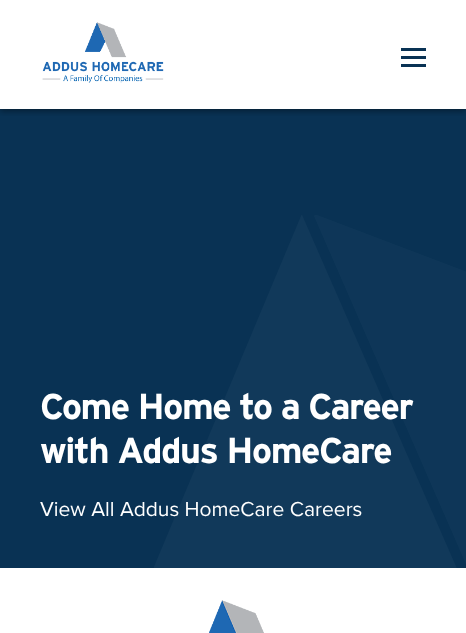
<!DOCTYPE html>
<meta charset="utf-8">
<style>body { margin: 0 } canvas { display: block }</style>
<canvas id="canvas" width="466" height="633"></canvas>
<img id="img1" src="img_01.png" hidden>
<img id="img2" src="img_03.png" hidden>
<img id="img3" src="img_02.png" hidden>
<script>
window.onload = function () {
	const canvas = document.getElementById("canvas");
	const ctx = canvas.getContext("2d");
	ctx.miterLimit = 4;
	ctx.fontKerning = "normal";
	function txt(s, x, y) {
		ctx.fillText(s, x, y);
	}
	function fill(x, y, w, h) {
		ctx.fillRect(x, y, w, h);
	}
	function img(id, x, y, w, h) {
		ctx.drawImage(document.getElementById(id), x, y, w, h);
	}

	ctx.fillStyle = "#FFFFFF";
	fill(0, 0, 466, 633);
	ctx.fillStyle = "#093254";
	fill(0, 109, 466, 459);
	ctx.save();
	ctx.beginPath();
	ctx.rect(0, 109, 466, 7);
	ctx.clip();
	ctx.fillStyle = "rgba(0, 0, 0, 0.4)";
	ctx.filter = "blur(3px)";
	ctx.beginPath();
	ctx.rect(0, 2, 466, 109);
	ctx.fill();
	ctx.filter = "none";
	ctx.restore();
	img("img1", 42, 22, 122, 61);
	fill(401, 56, 25, 3);
	fill(401, 48, 25, 3);
	fill(401, 64, 25, 3);
	img("img2", 209, 600, 55, 33);
	ctx.letterSpacing = "-1.4px";
	ctx.font = "bold 36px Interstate";
	ctx.fillStyle = "#FFFFFF";
	txt("Come Home to a Career", 40, 419);
	txt("with Addus HomeCare", 40, 463);
	ctx.letterSpacing = "0px";
	ctx.font = "21px Proxima Nova";
	txt("View All Addus HomeCare Careers", 40, 516);
	img("img3", 154, 215, 312, 353);
};
</script>
